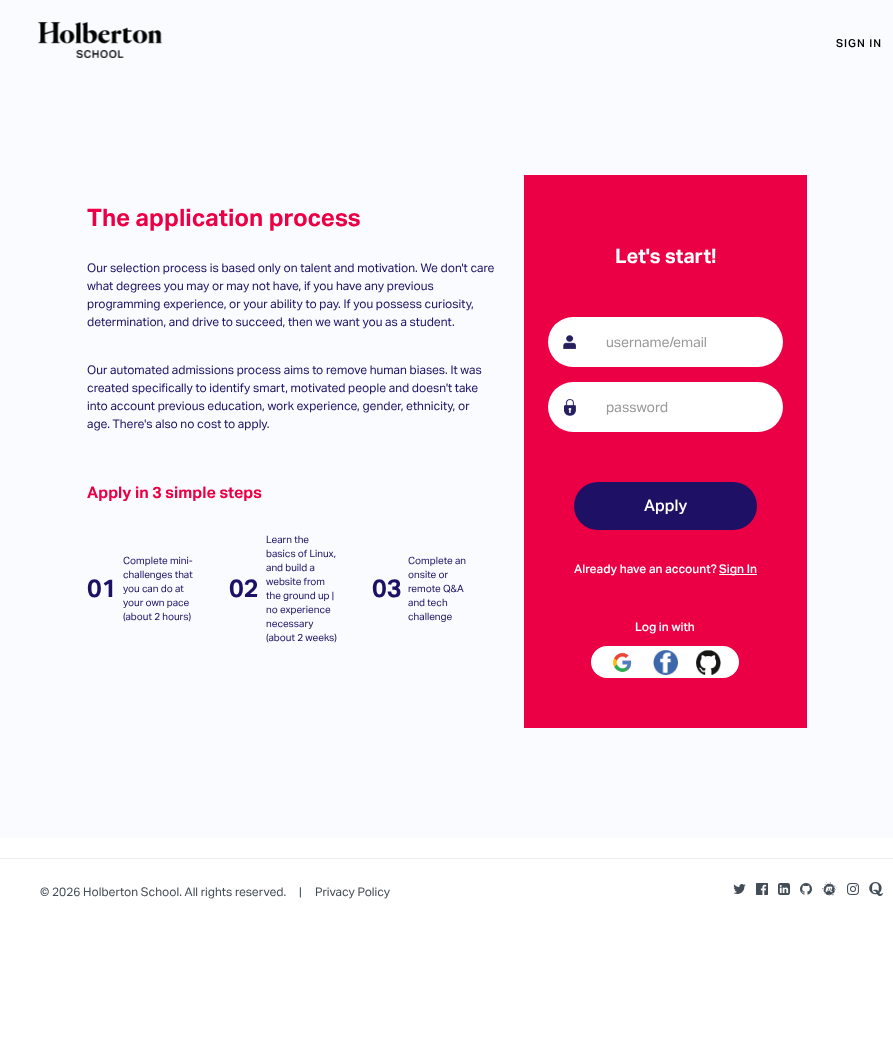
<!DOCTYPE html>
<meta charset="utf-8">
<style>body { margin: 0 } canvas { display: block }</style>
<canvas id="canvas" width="893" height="1052"></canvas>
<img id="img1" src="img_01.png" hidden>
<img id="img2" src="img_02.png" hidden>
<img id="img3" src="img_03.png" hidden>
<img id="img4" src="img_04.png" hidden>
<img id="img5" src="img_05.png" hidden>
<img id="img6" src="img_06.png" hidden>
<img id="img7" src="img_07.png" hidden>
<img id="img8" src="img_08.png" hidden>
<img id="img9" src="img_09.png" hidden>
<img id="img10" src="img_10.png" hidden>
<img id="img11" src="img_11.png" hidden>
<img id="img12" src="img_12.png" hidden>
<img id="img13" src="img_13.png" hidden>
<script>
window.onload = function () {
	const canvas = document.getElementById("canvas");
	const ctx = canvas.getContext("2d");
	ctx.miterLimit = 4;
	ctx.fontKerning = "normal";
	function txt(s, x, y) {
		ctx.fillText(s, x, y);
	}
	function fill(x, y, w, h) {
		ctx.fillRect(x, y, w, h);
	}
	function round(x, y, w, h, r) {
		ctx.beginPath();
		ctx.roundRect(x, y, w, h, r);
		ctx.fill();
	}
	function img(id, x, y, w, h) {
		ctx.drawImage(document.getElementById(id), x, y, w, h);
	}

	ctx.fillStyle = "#FFFFFF";
	fill(0, 0, 893, 1052);
	ctx.fillStyle = "#FAFBFF";
	fill(0, 0, 893, 838);
	img("img1", 37, 22, 126, 36);
	ctx.fillStyle = "#EB0045";
	fill(524, 175, 283, 553);
	ctx.fillStyle = "#FFFFFF";
	round(548, 317, 235, 50, 25);
	img("img2", 563, 335, 13, 14);
	round(548, 382, 235, 50, 25);
	img("img3", 564, 399, 12, 17);
	ctx.fillStyle = "#1E1065";
	round(574, 482, 183, 48, 24);
	ctx.fillStyle = "#FFFFFF";
	fill(719, 574, 38, 1);
	round(591, 646, 148, 32, 16);
	img("img4", 612, 652, 20, 21);
	img("img5", 653, 650, 25, 25);
	img("img6", 696, 650, 25, 25);
	ctx.fillStyle = "#EEEEEE";
	fill(0, 858, 893, 1);
	img("img7", 733, 884, 13, 10);
	img("img8", 756, 883, 12, 12);
	img("img9", 778, 883, 12, 12);
	img("img10", 800, 883, 12, 12);
	img("img11", 822, 882, 15, 14);
	img("img12", 847, 883, 12, 12);
	img("img13", 869, 882, 14, 14);
	ctx.letterSpacing = "1px";
	ctx.font = "500 11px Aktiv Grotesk";
	ctx.fillStyle = "#000000";
	txt("SIGN IN", 836, 47);
	ctx.letterSpacing = "0px";
	ctx.font = "bold 24px Aktiv Grotesk";
	ctx.fillStyle = "#EB0045";
	txt("The application process", 87, 226);
	ctx.font = "12px Aktiv Grotesk";
	ctx.fillStyle = "#1E1065";
	txt("Our selection process is based only on talent and motivation. We don't care", 87, 272);
	txt("what degrees you may or may not have, if you have any previous", 87, 290);
	txt("programming experience, or your ability to pay. If you possess curiosity,", 87, 308);
	txt("determination, and drive to succeed, then we want you as a student.", 87, 326);
	txt("Our automated admissions process aims to remove human biases. It was", 87, 374);
	txt("created specifically to identify smart, motivated people and doesn't take", 87, 392);
	txt("into account previous education, work experience, gender, ethnicity, or", 87, 410);
	txt("age. There's also no cost to apply.", 87, 428);
	ctx.font = "bold 16px Aktiv Grotesk";
	ctx.fillStyle = "#EB0045";
	txt("Apply in 3 simple steps", 87, 498);
	ctx.font = "bold 25px Aktiv Grotesk";
	ctx.fillStyle = "#1E1065";
	txt("01", 87, 597);
	ctx.font = "10px Aktiv Grotesk";
	txt("Complete mini-", 123, 564);
	txt("challenges that", 123, 578);
	txt("you can do at", 123, 592);
	txt("your own pace", 123, 606);
	txt("(about 2 hours)", 123, 620);
	ctx.font = "bold 25px Aktiv Grotesk";
	txt("02", 229, 597);
	ctx.font = "10px Aktiv Grotesk";
	txt("Learn the", 266, 543);
	txt("basics of Linux,", 266, 557);
	txt("and build a", 266, 571);
	txt("website from", 266, 585);
	txt("the ground up |", 266, 599);
	txt("no experience", 266, 613);
	txt("necessary", 266, 627);
	txt("(about 2 weeks)", 266, 641);
	ctx.font = "bold 25px Aktiv Grotesk";
	txt("03", 372, 597);
	ctx.font = "10px Aktiv Grotesk";
	txt("Complete an", 408, 564);
	txt("onsite or", 408, 578);
	txt("remote Q&A", 408, 592);
	txt("and tech", 408, 606);
	txt("challenge", 408, 620);
	ctx.font = "bold 20px Aktiv Grotesk";
	ctx.fillStyle = "#FFFFFF";
	txt("Let's start!", 615, 263);
	ctx.font = "14px Aktiv Grotesk";
	ctx.fillStyle = "#999999";
	txt("username/email", 606, 347);
	txt("password", 606, 412);
	ctx.font = "500 16px Aktiv Grotesk";
	ctx.fillStyle = "#FFFFFF";
	txt("Apply", 644, 511);
	ctx.font = "500 12px Aktiv Grotesk";
	txt("Already have an account?", 574, 573);
	txt("Sign In", 719, 573);
	txt("Log in with", 635, 631);
	ctx.font = "12px Aktiv Grotesk";
	ctx.fillStyle = "#434D57";
	txt("© 2026 Holberton School. All rights reserved.", 40, 896);
	txt("|", 299, 896);
	txt("Privacy Policy", 315, 896);
};
</script>
